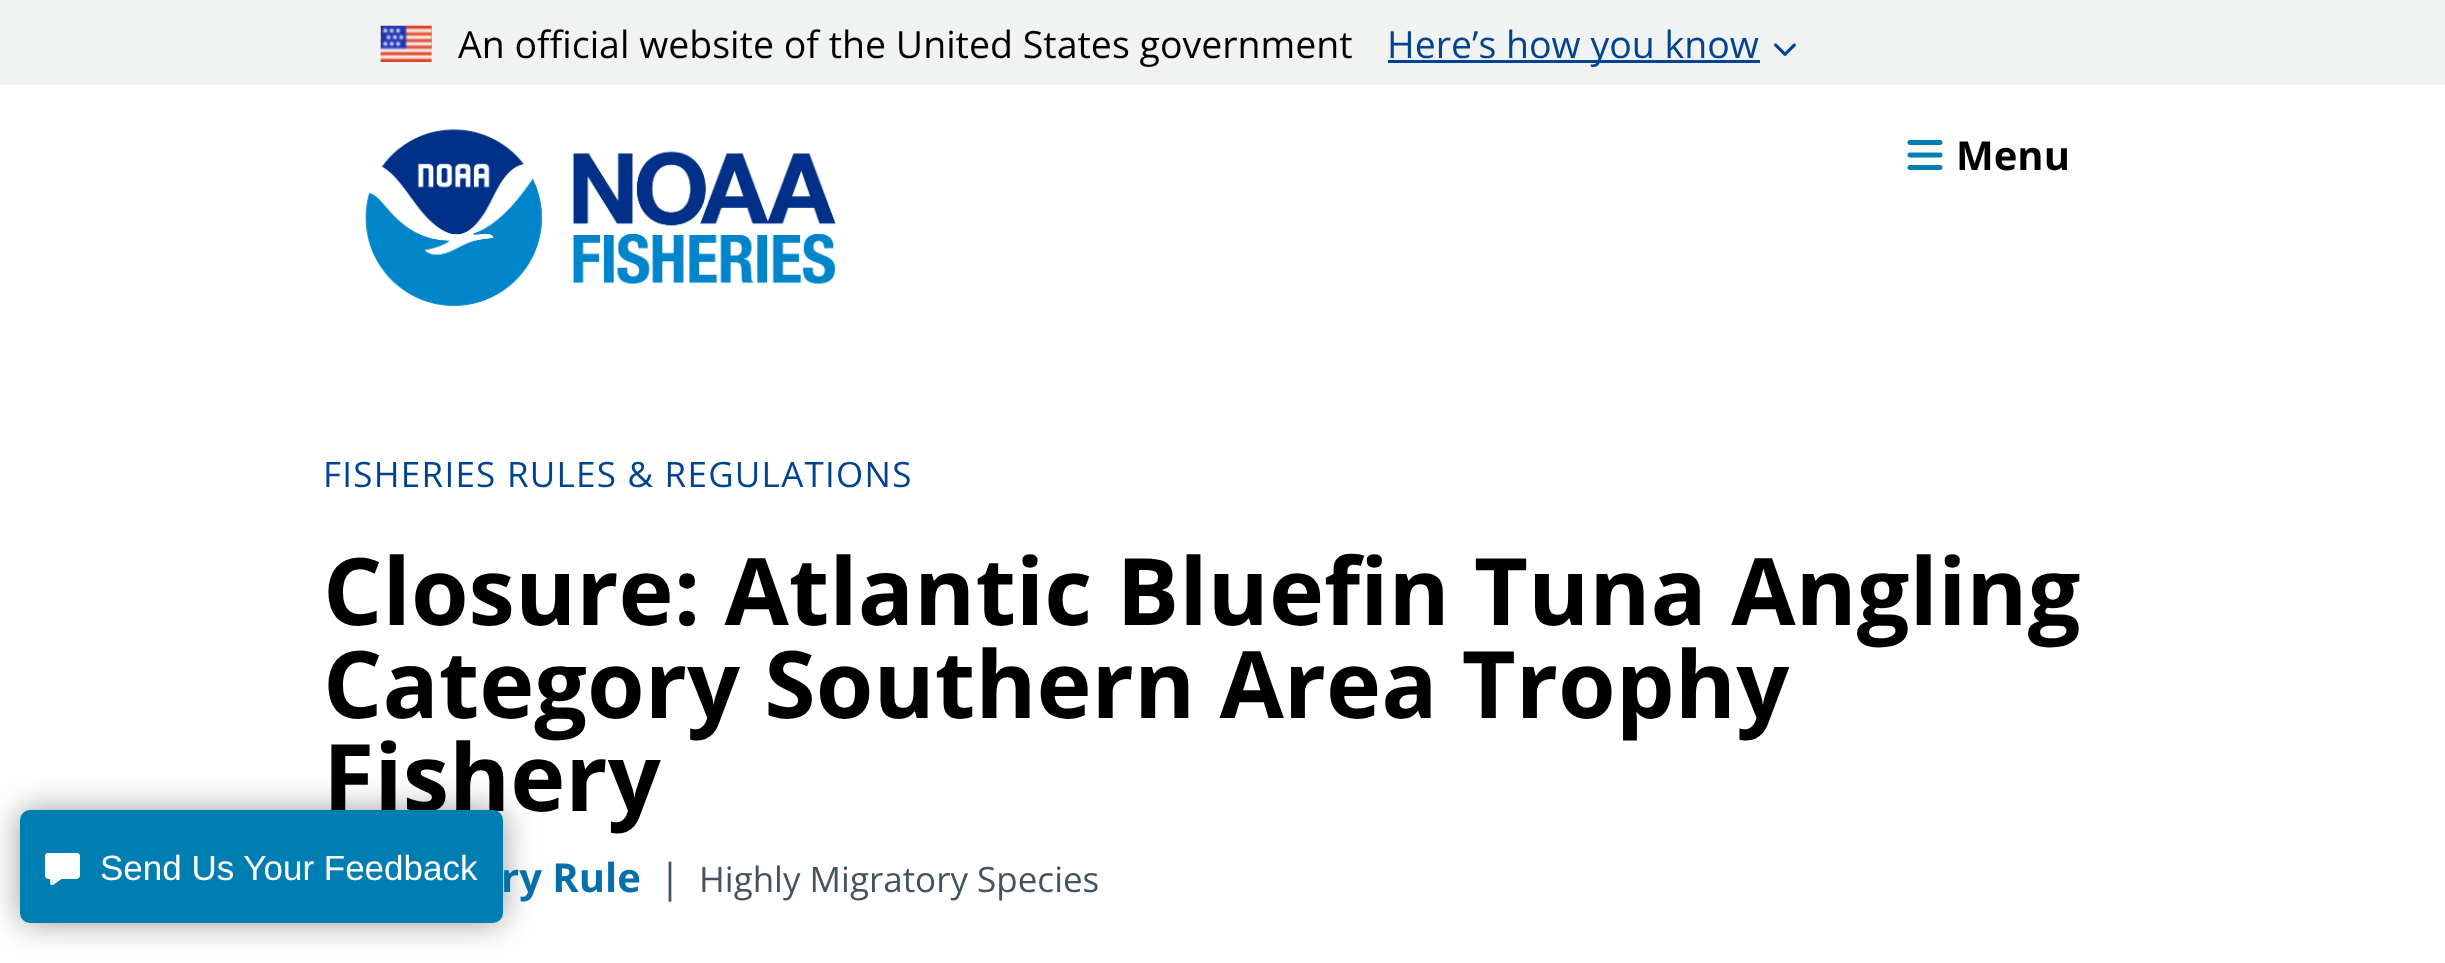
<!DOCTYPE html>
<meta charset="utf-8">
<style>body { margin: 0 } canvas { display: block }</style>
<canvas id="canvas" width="2445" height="963"></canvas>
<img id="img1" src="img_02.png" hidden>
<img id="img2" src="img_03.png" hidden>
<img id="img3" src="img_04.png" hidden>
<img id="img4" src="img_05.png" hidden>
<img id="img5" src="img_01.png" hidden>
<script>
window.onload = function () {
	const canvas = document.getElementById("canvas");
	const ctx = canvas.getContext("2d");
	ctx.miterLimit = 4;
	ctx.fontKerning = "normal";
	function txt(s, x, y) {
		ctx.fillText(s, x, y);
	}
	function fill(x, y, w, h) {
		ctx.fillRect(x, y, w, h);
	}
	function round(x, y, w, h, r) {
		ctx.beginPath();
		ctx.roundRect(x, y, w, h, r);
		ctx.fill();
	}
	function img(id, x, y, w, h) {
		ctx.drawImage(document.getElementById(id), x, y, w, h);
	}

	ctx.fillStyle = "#FFFFFF";
	fill(0, 0, 2445, 963);
	ctx.fillStyle = "rgba(0, 0, 0, 0.4)";
	ctx.filter = "blur(16px)";
	ctx.beginPath();
	ctx.roundRect(20, 810, 483, 113, 10);
	ctx.fill();
	ctx.filter = "none";
	ctx.fillStyle = "#F1F3F3";
	fill(0, 0, 2445, 85);
	img("img1", 380, 25, 52, 37);
	ctx.fillStyle = "#004391";
	fill(1388, 60, 372, 3);
	img("img2", 1774, 43, 22, 13);
	img("img3", 365, 129, 471, 178);
	img("img4", 1907, 140, 36, 30);
	ctx.font = "37.5px Open Sans";
	ctx.fillStyle = "#000000";
	txt("An official website of the United States government", 458, 58);
	ctx.fillStyle = "#004391";
	txt("Here’s how you know", 1387, 58);
	ctx.font = "bold 40px Open Sans";
	ctx.fillStyle = "#000000";
	txt("Menu", 1956, 170);
	ctx.letterSpacing = "1.25px";
	ctx.font = "35px Open Sans";
	ctx.fillStyle = "#004391";
	txt("FISHERIES RULES & REGULATIONS", 323, 487);
	ctx.letterSpacing = "0px";
	ctx.font = "bold 93.25px Open Sans";
	ctx.fillStyle = "#000000";
	txt("Closure: Atlantic Bluefin Tuna Angling", 323, 625);
	txt("Category Southern Area Trophy", 323, 718);
	txt("Fishery", 323, 811);
	ctx.fillStyle = "#007EB2";
	round(20, 810, 483, 113, 10);
	ctx.font = "35px Liberation Sans";
	ctx.fillStyle = "#FFFFFF";
	txt("Send Us Your Feedback", 100, 880);
	img("img5", 45, 853, 35, 32);
	ctx.font = "bold 40px Open Sans";
	ctx.fillStyle = "#056FAA";
	txt("ry Rule", 501, 892);
	ctx.font = "40px Open Sans";
	ctx.fillStyle = "#44545F";
	txt("|", 659, 892);
	ctx.font = "35px Open Sans";
	txt("Highly Migratory Species", 699, 892);
};
</script>
